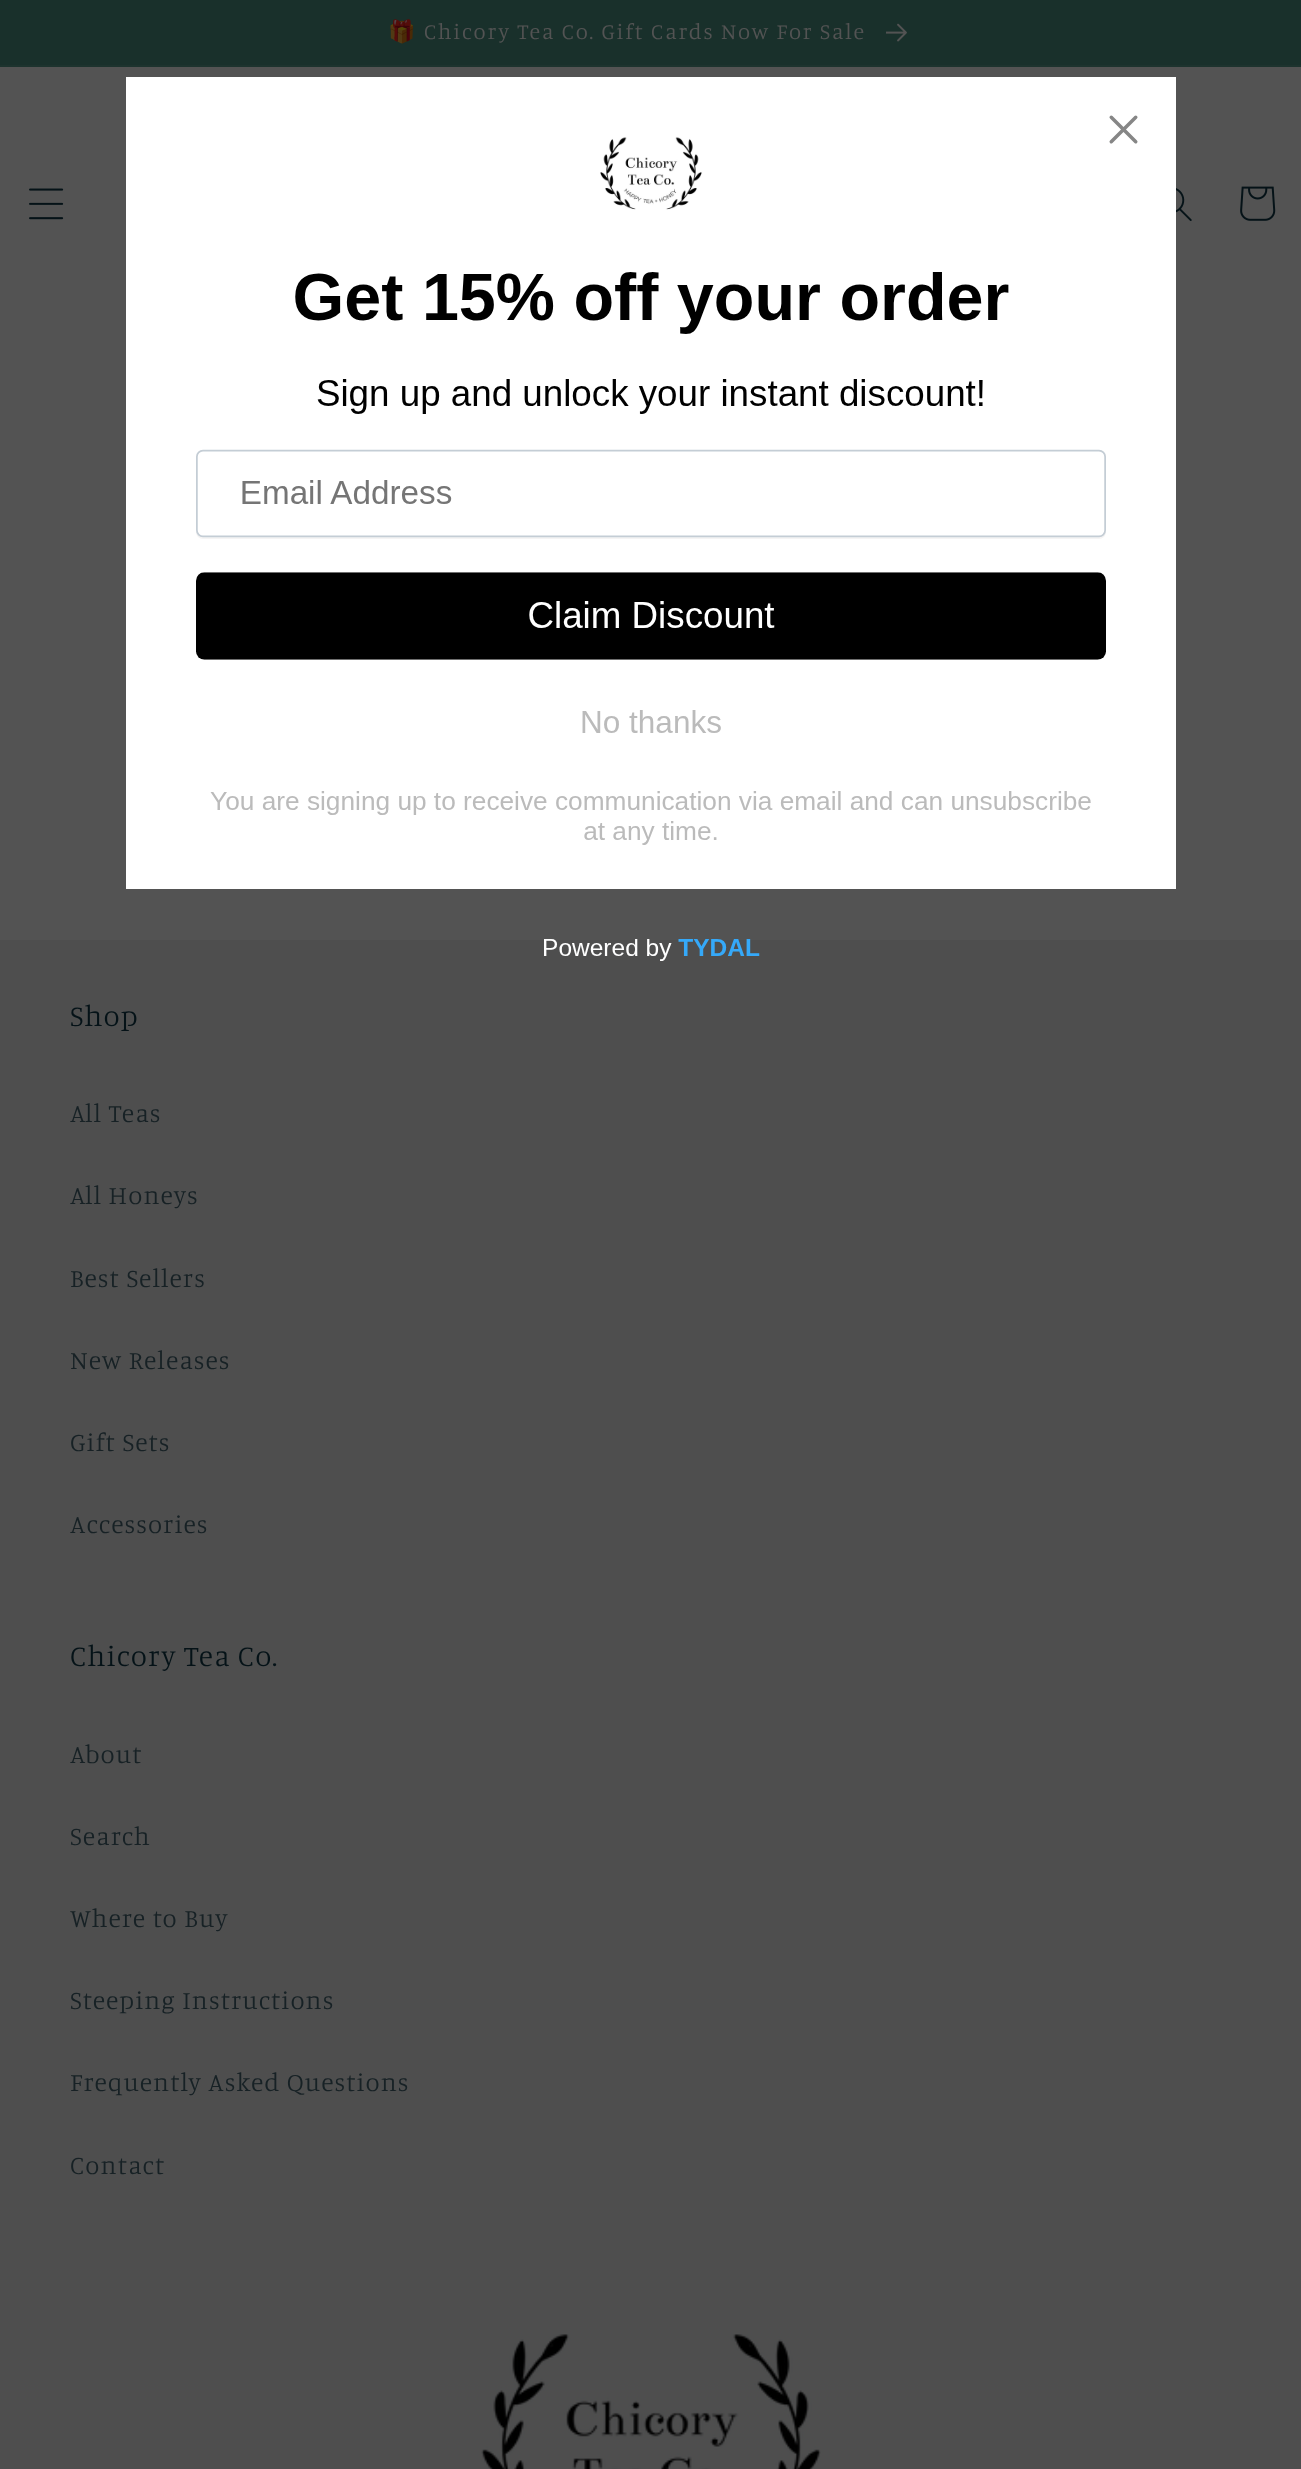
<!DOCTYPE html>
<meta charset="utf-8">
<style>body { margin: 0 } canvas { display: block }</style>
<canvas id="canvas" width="1301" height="2469"></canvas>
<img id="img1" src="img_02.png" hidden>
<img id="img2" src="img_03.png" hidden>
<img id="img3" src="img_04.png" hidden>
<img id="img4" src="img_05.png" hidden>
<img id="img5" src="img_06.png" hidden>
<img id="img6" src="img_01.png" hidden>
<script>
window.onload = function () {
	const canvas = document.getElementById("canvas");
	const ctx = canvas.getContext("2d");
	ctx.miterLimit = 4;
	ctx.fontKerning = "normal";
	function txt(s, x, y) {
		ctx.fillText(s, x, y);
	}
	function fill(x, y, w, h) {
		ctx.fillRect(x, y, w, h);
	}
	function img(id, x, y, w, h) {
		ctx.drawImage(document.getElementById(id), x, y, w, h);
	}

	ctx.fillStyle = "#FCFCFC";
	fill(0, 0, 1301, 2469);
	ctx.fillStyle = "#4C9283";
	fill(0, 0, 1301, 65);
	ctx.fillStyle = "#5A9A8D";
	fill(0, 65, 1301, 2);
	img("img1", 886, 23, 21, 19);
	img("img2", 29, 188, 35, 32);
	img("img3", 1176, 188, 16, 33);
	img("img4", 1240, 186, 36, 35);
	ctx.fillStyle = "#EBECED";
	fill(0, 940, 1301, 1529);
	img("img5", 481, 2334, 340, 135);
	ctx.letterSpacing = "1.85px";
	ctx.font = "22.05px Noto Color Emoji";
	ctx.fillStyle = "#FCFCFC";
	txt("🎁", 388, 39);
	ctx.font = "300 22.05px Manuale";
	txt("Chicory Tea Co. Gift Cards Now For Sale", 424, 39);
	ctx.letterSpacing = "1.1px";
	ctx.font = "300 29.5px Manuale";
	ctx.fillStyle = "#103948";
	txt("Shop", 70, 1026);
	ctx.font = "300 25.75px Manuale";
	ctx.fillStyle = "#476671";
	txt("All Teas", 70, 1122);
	txt("All Honeys", 70, 1204);
	txt("Best Sellers", 70, 1287);
	txt("New Releases", 70, 1369);
	txt("Gift Sets", 70, 1451);
	txt("Accessories", 70, 1533);
	ctx.font = "300 29.5px Manuale";
	ctx.fillStyle = "#103948";
	txt("Chicory Tea Co.", 70, 1666);
	ctx.font = "300 25.75px Manuale";
	ctx.fillStyle = "#476671";
	txt("About", 70, 1763);
	txt("Search", 70, 1845);
	txt("Where to Buy", 70, 1927);
	txt("Steeping Instructions", 70, 2009);
	txt("Frequently Asked Questions", 70, 2091);
	txt("Contact", 70, 2174);
	img("img6", 0, 0, 1301, 2469);
};
</script>
